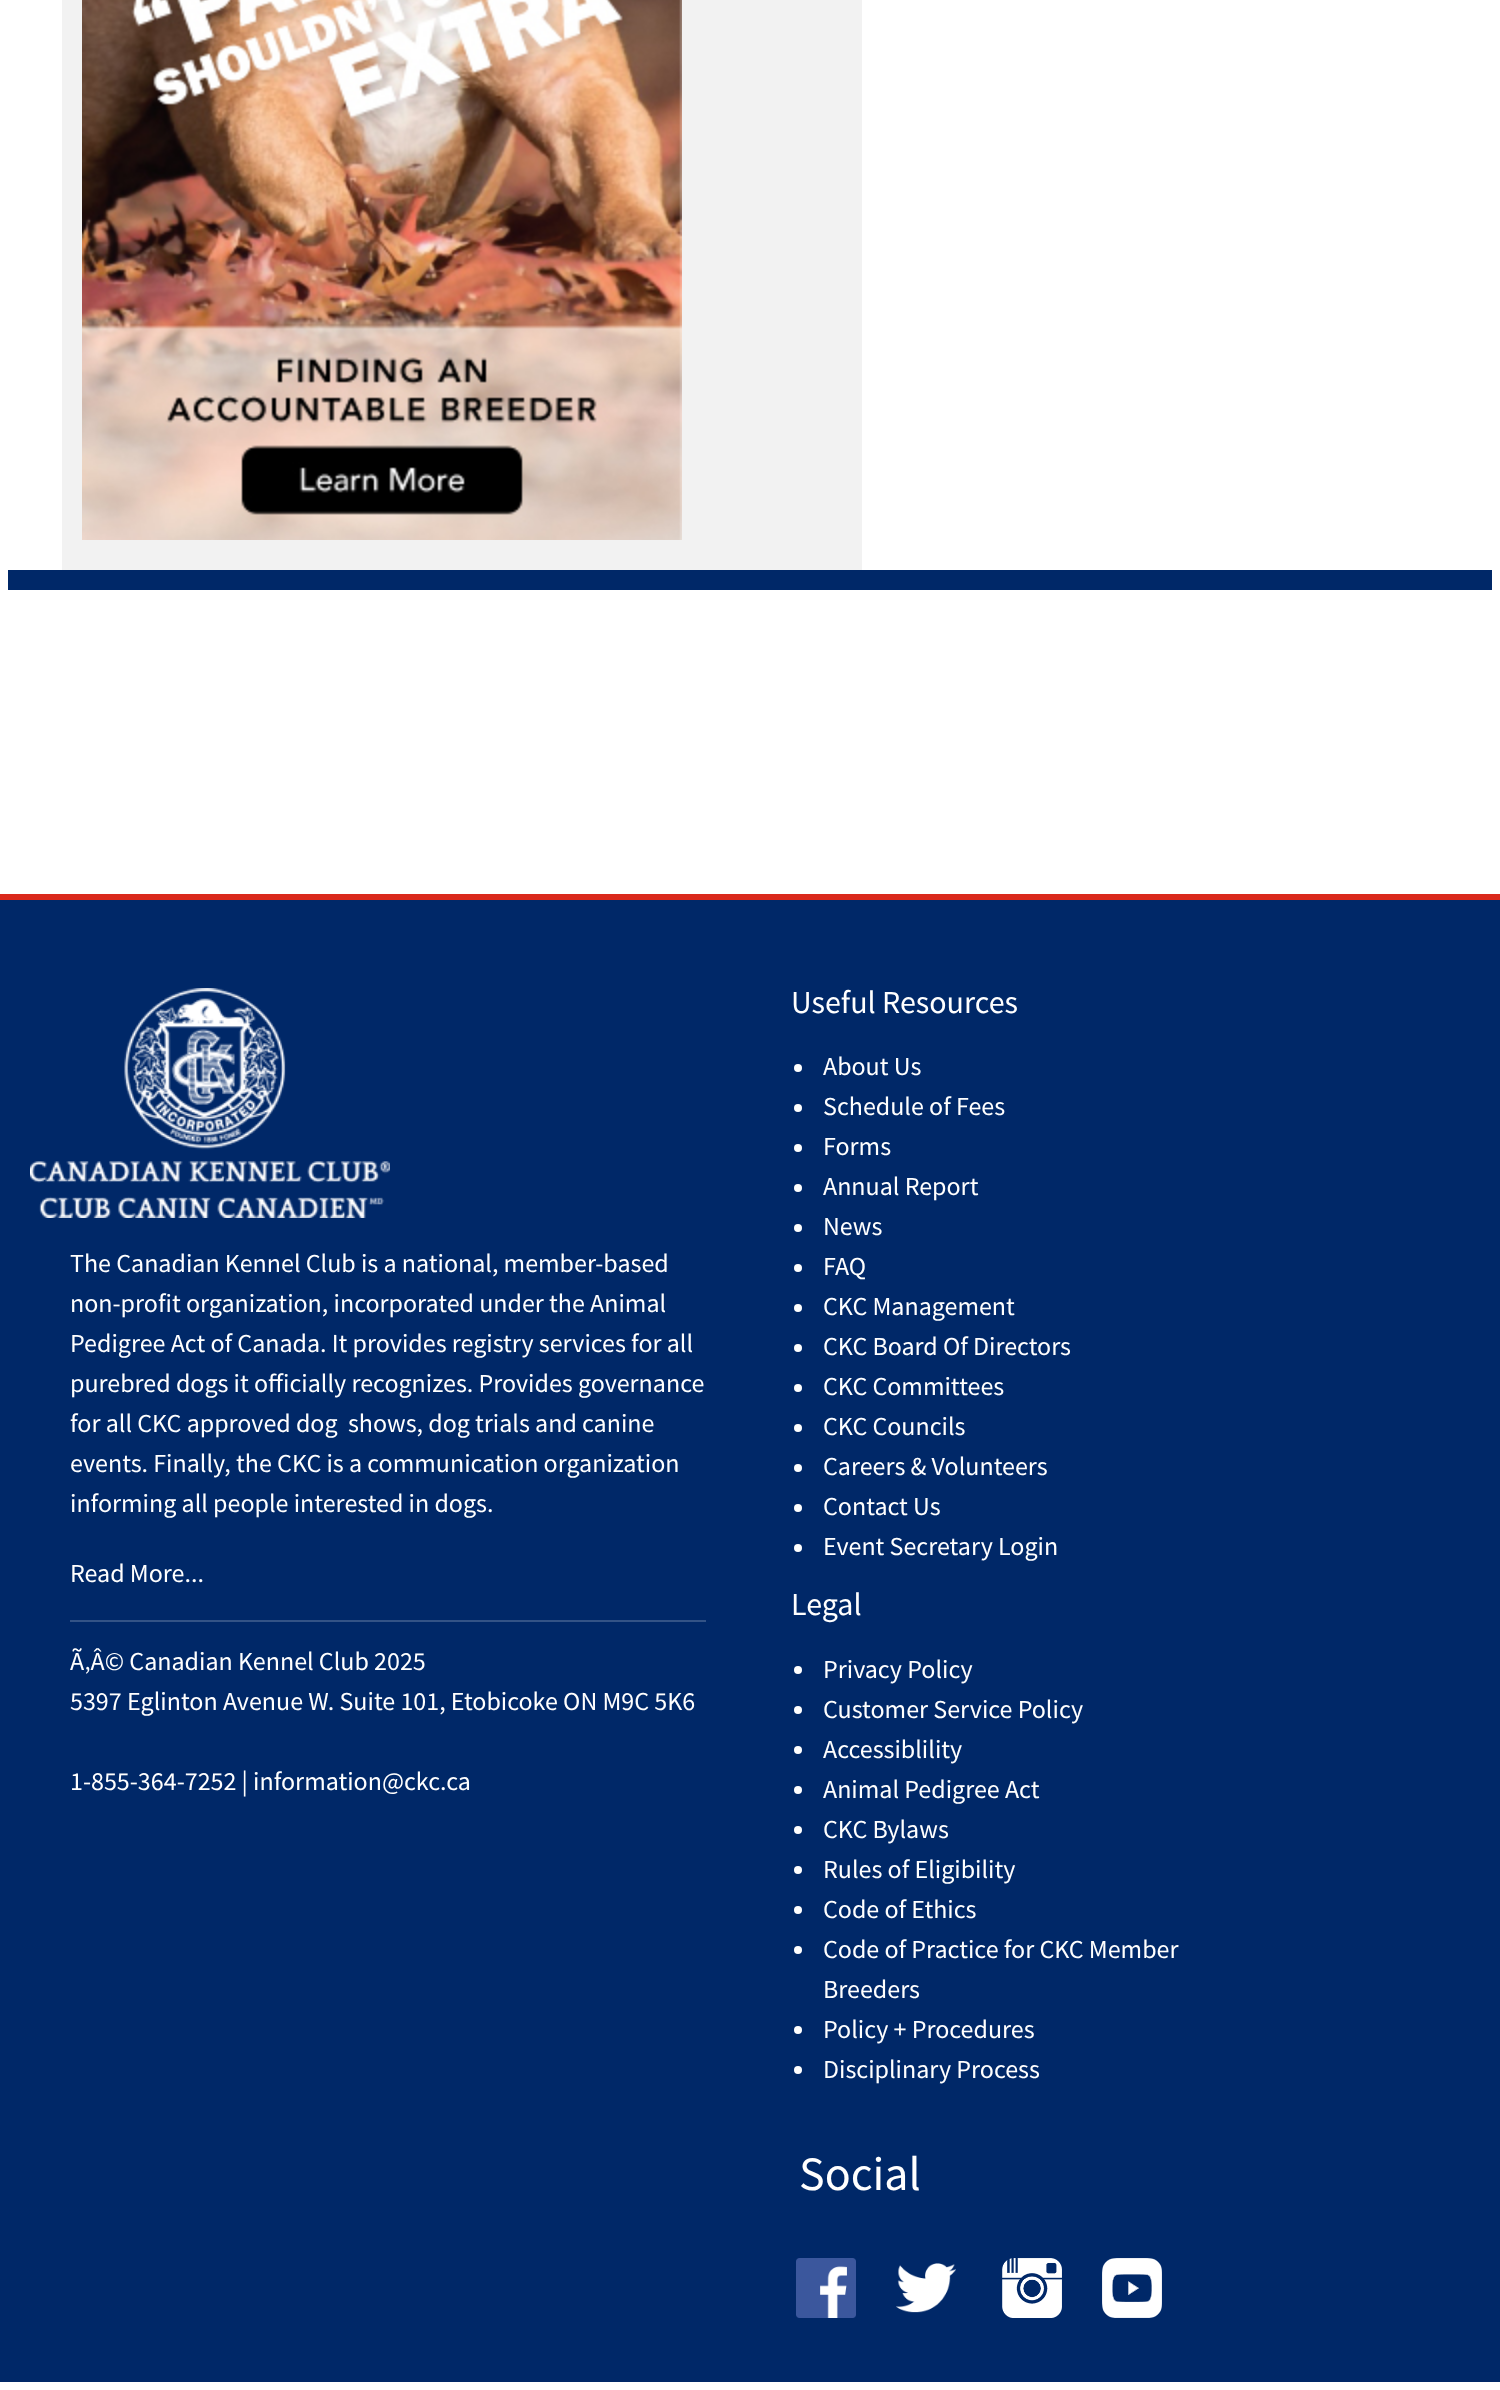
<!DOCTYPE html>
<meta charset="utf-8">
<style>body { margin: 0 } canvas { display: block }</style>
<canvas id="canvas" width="1500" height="2390"></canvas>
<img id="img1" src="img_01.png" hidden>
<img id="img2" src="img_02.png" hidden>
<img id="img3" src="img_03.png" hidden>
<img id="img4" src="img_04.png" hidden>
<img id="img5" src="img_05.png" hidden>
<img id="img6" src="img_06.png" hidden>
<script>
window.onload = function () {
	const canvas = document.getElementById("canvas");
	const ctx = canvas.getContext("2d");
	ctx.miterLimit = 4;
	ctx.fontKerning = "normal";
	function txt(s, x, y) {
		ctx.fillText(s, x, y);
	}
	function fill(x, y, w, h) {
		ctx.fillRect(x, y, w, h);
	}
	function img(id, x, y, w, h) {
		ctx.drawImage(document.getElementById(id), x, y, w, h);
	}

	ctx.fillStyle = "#FFFFFF";
	fill(0, 0, 1500, 2390);
	ctx.fillStyle = "#F2F2F2";
	fill(62, 0, 800, 570);
	img("img1", 82, 0, 600, 540);
	ctx.fillStyle = "#002868";
	fill(8, 570, 1484, 20);
	fill(0, 900, 1500, 1482);
	ctx.fillStyle = "#DA291C";
	fill(0, 894, 1500, 6);
	img("img2", 30, 988, 360, 230);
	ctx.fillStyle = "#335386";
	fill(70, 1620, 636, 2);
	ctx.fillStyle = "#FFFFFF";
	ctx.beginPath();
	ctx.arc(798, 1068, 4, 0, Math.PI * 2);
	ctx.fill();
	ctx.beginPath();
	ctx.arc(798, 1108, 4, 0, Math.PI * 2);
	ctx.fill();
	ctx.beginPath();
	ctx.arc(798, 1148, 4, 0, Math.PI * 2);
	ctx.fill();
	ctx.beginPath();
	ctx.arc(798, 1188, 4, 0, Math.PI * 2);
	ctx.fill();
	ctx.beginPath();
	ctx.arc(798, 1228, 4, 0, Math.PI * 2);
	ctx.fill();
	ctx.beginPath();
	ctx.arc(798, 1268, 4, 0, Math.PI * 2);
	ctx.fill();
	ctx.beginPath();
	ctx.arc(798, 1308, 4, 0, Math.PI * 2);
	ctx.fill();
	ctx.beginPath();
	ctx.arc(798, 1348, 4, 0, Math.PI * 2);
	ctx.fill();
	ctx.beginPath();
	ctx.arc(798, 1388, 4, 0, Math.PI * 2);
	ctx.fill();
	ctx.beginPath();
	ctx.arc(798, 1428, 4, 0, Math.PI * 2);
	ctx.fill();
	ctx.beginPath();
	ctx.arc(798, 1468, 4, 0, Math.PI * 2);
	ctx.fill();
	ctx.beginPath();
	ctx.arc(798, 1508, 4, 0, Math.PI * 2);
	ctx.fill();
	ctx.beginPath();
	ctx.arc(798, 1548, 4, 0, Math.PI * 2);
	ctx.fill();
	ctx.beginPath();
	ctx.arc(798, 1670, 4, 0, Math.PI * 2);
	ctx.fill();
	ctx.beginPath();
	ctx.arc(798, 1710, 4, 0, Math.PI * 2);
	ctx.fill();
	ctx.beginPath();
	ctx.arc(798, 1750, 4, 0, Math.PI * 2);
	ctx.fill();
	ctx.beginPath();
	ctx.arc(798, 1790, 4, 0, Math.PI * 2);
	ctx.fill();
	ctx.beginPath();
	ctx.arc(798, 1830, 4, 0, Math.PI * 2);
	ctx.fill();
	ctx.beginPath();
	ctx.arc(798, 1870, 4, 0, Math.PI * 2);
	ctx.fill();
	ctx.beginPath();
	ctx.arc(798, 1910, 4, 0, Math.PI * 2);
	ctx.fill();
	ctx.beginPath();
	ctx.arc(798, 1950, 4, 0, Math.PI * 2);
	ctx.fill();
	ctx.beginPath();
	ctx.arc(798, 2030, 4, 0, Math.PI * 2);
	ctx.fill();
	ctx.beginPath();
	ctx.arc(798, 2070, 4, 0, Math.PI * 2);
	ctx.fill();
	img("img3", 796, 2258, 60, 60);
	img("img4", 896, 2263, 60, 50);
	img("img5", 1002, 2258, 60, 60);
	img("img6", 1102, 2258, 60, 60);
	ctx.font = "26px Source Sans Pro";
	txt("The Canadian Kennel Club is a national, member-based", 70, 1272);
	txt("non-profit organization, incorporated under the Animal", 70, 1312);
	txt("Pedigree Act of Canada. It provides registry services for all", 70, 1352);
	txt("purebred dogs it officially recognizes. Provides governance", 70, 1392);
	txt("for all CKC approved dog  shows, dog trials and canine", 70, 1432);
	txt("events. Finally, the CKC is a communication organization", 70, 1472);
	txt("informing all people interested in dogs.", 70, 1512);
	txt("Read More...", 70, 1582);
	txt("Ã‚Â© Canadian Kennel Club 2025", 70, 1670);
	txt("5397 Eglinton Avenue W. Suite 101, Etobicoke ON M9C 5K6", 70, 1710);
	txt("1-855-364-7252 | information@ckc.ca", 70, 1790);
	ctx.font = "32px Source Sans Pro";
	txt("Useful Resources", 791, 1013);
	ctx.font = "26px Source Sans Pro";
	txt("About Us", 823, 1075);
	txt("Schedule of Fees", 823, 1115);
	txt("Forms", 823, 1155);
	txt("Annual Report", 823, 1195);
	txt("News", 823, 1235);
	txt("FAQ", 823, 1275);
	txt("CKC Management", 823, 1315);
	txt("CKC Board Of Directors", 823, 1355);
	txt("CKC Committees", 823, 1395);
	txt("CKC Councils", 823, 1435);
	txt("Careers & Volunteers", 823, 1475);
	txt("Contact Us", 823, 1515);
	txt("Event Secretary Login", 823, 1555);
	ctx.font = "32px Source Sans Pro";
	txt("Legal", 791, 1615);
	ctx.font = "26px Source Sans Pro";
	txt("Privacy Policy", 823, 1678);
	txt("Customer Service Policy", 823, 1718);
	txt("Accessiblility", 823, 1758);
	txt("Animal Pedigree Act", 823, 1798);
	txt("CKC Bylaws", 823, 1838);
	txt("Rules of Eligibility", 823, 1878);
	txt("Code of Ethics", 823, 1918);
	txt("Code of Practice for CKC Member", 823, 1958);
	txt("Breeders", 823, 1998);
	txt("Policy + Procedures", 823, 2038);
	txt("Disciplinary Process", 823, 2078);
	ctx.font = "48px Source Sans Pro";
	txt("Social", 799, 2190);
};
</script>
